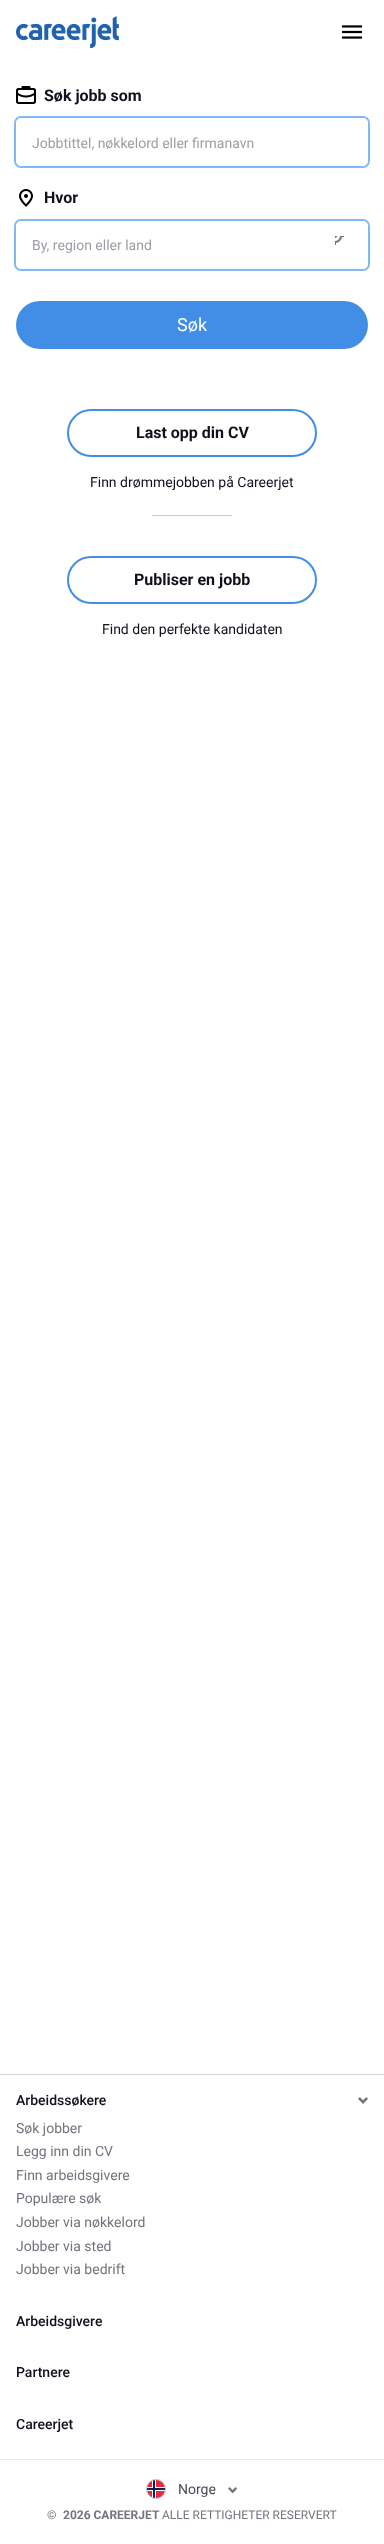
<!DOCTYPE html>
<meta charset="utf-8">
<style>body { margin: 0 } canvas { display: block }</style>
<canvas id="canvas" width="384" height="2544"></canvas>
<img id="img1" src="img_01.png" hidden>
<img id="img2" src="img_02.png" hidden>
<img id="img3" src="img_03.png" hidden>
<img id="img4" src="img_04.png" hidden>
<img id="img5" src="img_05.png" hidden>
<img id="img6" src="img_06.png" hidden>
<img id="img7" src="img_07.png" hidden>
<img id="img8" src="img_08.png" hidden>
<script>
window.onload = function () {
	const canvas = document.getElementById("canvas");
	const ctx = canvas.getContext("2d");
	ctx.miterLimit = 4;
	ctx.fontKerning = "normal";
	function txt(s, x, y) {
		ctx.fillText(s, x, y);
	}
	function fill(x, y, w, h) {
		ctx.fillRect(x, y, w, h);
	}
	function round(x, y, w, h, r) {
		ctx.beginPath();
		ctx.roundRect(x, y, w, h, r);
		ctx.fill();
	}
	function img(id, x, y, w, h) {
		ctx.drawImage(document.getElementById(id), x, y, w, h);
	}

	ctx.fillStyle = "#FFFFFF";
	fill(0, 0, 384, 2544);
	img("img1", 16, 16, 103, 32);
	img("img2", 342, 25, 20, 14);
	img("img3", 16, 86, 20, 18);
	ctx.beginPath();
	ctx.roundRect(15, 117, 354, 50, 6);
	ctx.strokeStyle = "#80B8F8";
	ctx.lineWidth = 2;
	ctx.stroke();
	ctx.beginPath();
	ctx.roundRect(16.5, 118.5, 351, 47, 4.5);
	ctx.fill();
	ctx.strokeStyle = "#FFFFFF";
	ctx.lineWidth = 1;
	ctx.stroke();
	img("img4", 19, 189, 14, 18);
	ctx.beginPath();
	ctx.roundRect(15, 220, 354, 50, 6);
	ctx.strokeStyle = "#80B8F8";
	ctx.lineWidth = 2;
	ctx.stroke();
	ctx.beginPath();
	ctx.roundRect(16.5, 221.5, 351, 47, 4.5);
	ctx.fill();
	ctx.strokeStyle = "#FFFFFF";
	ctx.lineWidth = 1;
	ctx.stroke();
	img("img5", 335, 236, 9, 9);
	ctx.fillStyle = "#428EE6";
	round(16, 301, 352, 48, 24);
	ctx.beginPath();
	ctx.roundRect(68, 410, 248, 46, 23);
	ctx.strokeStyle = "#428EE6";
	ctx.lineWidth = 2;
	ctx.stroke();
	ctx.fillStyle = "#C8CAD2";
	fill(152, 515, 80, 1);
	ctx.beginPath();
	ctx.roundRect(68, 557, 248, 46, 23);
	ctx.stroke();
	ctx.fillStyle = "#D4D6DE";
	fill(0, 2074, 384, 1);
	img("img6", 358, 2097, 10, 7);
	ctx.fillStyle = "#E8EAF0";
	fill(0, 2459, 384, 1);
	ctx.beginPath();
	ctx.arc(156, 2489, 9.5, 0, Math.PI * 2);
	ctx.strokeStyle = "#C0C0C4";
	ctx.lineWidth = 1;
	ctx.stroke();
	img("img7", 147, 2480, 18, 18);
	img("img8", 228, 2487, 9, 6);
	ctx.font = "bold 16px Roboto";
	ctx.fillStyle = "#12101C";
	txt("Søk jobb som", 44, 101);
	ctx.font = "14px Roboto";
	ctx.fillStyle = "#9E9DA6";
	txt("Jobbtittel, nøkkelord eller firmanavn", 32, 148);
	ctx.font = "bold 16px Roboto";
	ctx.fillStyle = "#12101C";
	txt("Hvor", 44, 203);
	ctx.font = "14px Roboto";
	ctx.fillStyle = "#9E9DA6";
	txt("By, region eller land", 32, 250);
	ctx.font = "18px Roboto";
	ctx.fillStyle = "#FFFFFF";
	txt("Søk", 177, 331);
	ctx.font = "bold 16px Roboto";
	ctx.fillStyle = "#12101C";
	txt("Last opp din CV", 136, 438);
	ctx.font = "14px Roboto";
	txt("Finn drømmejobben på Careerjet", 90, 487);
	ctx.font = "bold 16px Roboto";
	txt("Publiser en jobb", 134, 585);
	ctx.font = "14px Roboto";
	txt("Find den perfekte kandidaten", 102, 634);
	ctx.font = "500 14px Roboto";
	txt("Arbeidssøkere", 16, 2105);
	ctx.font = "14px Roboto";
	ctx.fillStyle = "#74737E";
	txt("Søk jobber", 16, 2133);
	txt("Legg inn din CV", 16, 2156);
	txt("Finn arbeidsgivere", 16, 2180);
	txt("Populære søk", 16, 2203);
	txt("Jobber via nøkkelord", 16, 2227);
	txt("Jobber via sted", 16, 2251);
	txt("Jobber via bedrift", 16, 2274);
	ctx.font = "500 14px Roboto";
	ctx.fillStyle = "#12101C";
	txt("Arbeidsgivere", 16, 2326);
	txt("Partnere", 16, 2377);
	txt("Careerjet", 16, 2429);
	ctx.font = "14px Roboto";
	ctx.fillStyle = "#4B4956";
	txt("Norge", 178, 2494);
	ctx.font = "12px Roboto";
	ctx.fillStyle = "#74737E";
	txt("©", 47, 2519);
	ctx.font = "bold 12px Roboto";
	txt("2026 CAREERJET", 63, 2519);
	ctx.font = "12px Roboto";
	txt("ALLE RETTIGHETER RESERVERT", 162, 2519);
};
</script>
